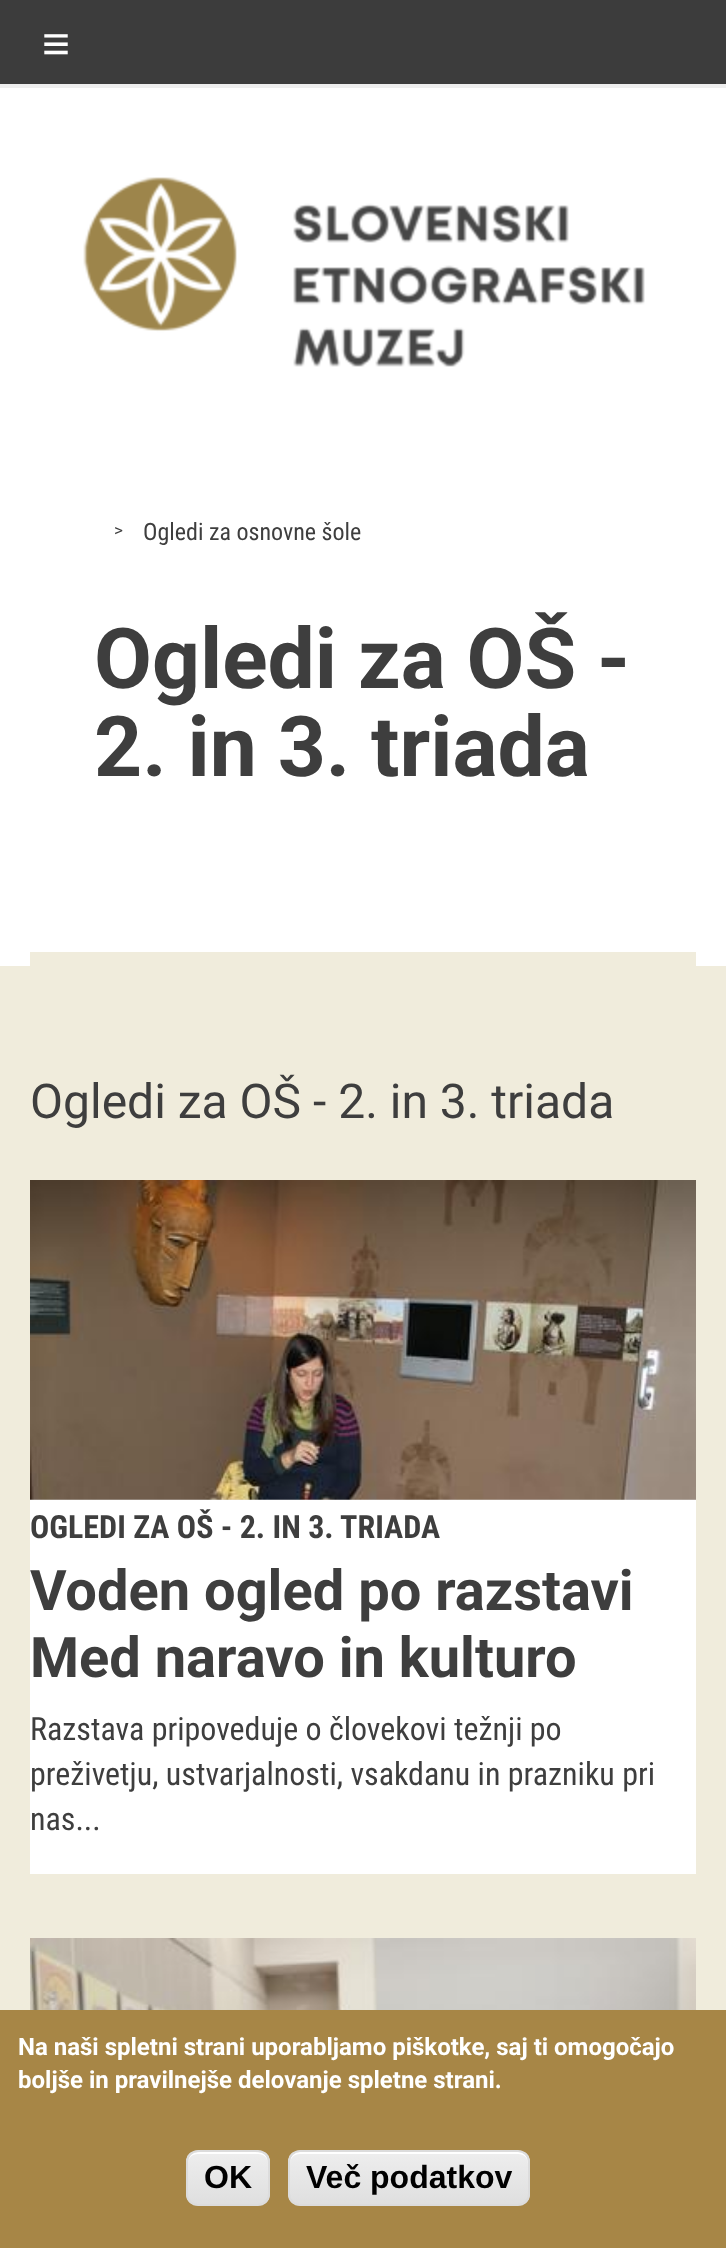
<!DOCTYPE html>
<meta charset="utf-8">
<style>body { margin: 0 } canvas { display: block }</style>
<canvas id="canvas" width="726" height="2248"></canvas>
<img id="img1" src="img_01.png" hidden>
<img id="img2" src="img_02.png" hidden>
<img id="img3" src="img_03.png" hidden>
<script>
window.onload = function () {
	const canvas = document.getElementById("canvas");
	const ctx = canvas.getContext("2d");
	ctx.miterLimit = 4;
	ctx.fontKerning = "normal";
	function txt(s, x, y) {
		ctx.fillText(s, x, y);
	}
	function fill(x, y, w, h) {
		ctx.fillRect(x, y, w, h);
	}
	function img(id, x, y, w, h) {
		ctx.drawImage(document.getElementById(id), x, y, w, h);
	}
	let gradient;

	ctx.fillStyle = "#FFFFFF";
	fill(0, 0, 726, 2248);
	ctx.fillStyle = "#3C3C3C";
	fill(0, 0, 726, 84);
	ctx.fillStyle = "#EEEEEE";
	fill(0, 84, 726, 4);
	img("img1", 83, 177, 562, 190);
	ctx.fillStyle = "#F0ECDC";
	fill(0, 966, 726, 1044);
	fill(30, 952, 666, 14);
	ctx.fillStyle = "#FFFFFF";
	fill(30, 1500, 666, 374);
	ctx.fillStyle = "#DDDDDD";
	fill(30, 1499, 666, 1);
	img("img2", 30, 1180, 666, 320);
	img("img3", 30, 1938, 666, 72);
	ctx.fillStyle = "#A78646";
	fill(0, 2010, 726, 238);
	ctx.save();
	ctx.beginPath();
	ctx.roundRect(186, 2150, 84, 56, 12);
	ctx.clip();
	gradient = ctx.createLinearGradient(188, 2152, 188, 2204);
	gradient.addColorStop(0.05, "#EDEDED");
	gradient.addColorStop(1, "#DFDFDF");
	ctx.fillStyle = gradient;
	fill(186, 2152, 84, 52);
	ctx.restore();
	ctx.fillStyle = "#FFFFFF";
	ctx.beginPath();
	ctx.moveTo(198, 2154);
	ctx.lineTo(258, 2154);
	ctx.bezierCurveTo(264, 2154, 268, 2158, 268, 2164);
	ctx.bezierCurveTo(268, 2151, 259, 2152, 248, 2152);
	ctx.lineTo(208, 2152);
	ctx.bezierCurveTo(197, 2152, 188, 2151, 188, 2164);
	ctx.bezierCurveTo(188, 2158, 192, 2154, 198, 2154);
	ctx.closePath();
	ctx.fill();
	ctx.beginPath();
	ctx.roundRect(187, 2151, 82, 54, 11);
	ctx.strokeStyle = "#DCDCDC";
	ctx.lineWidth = 2;
	ctx.stroke();
	ctx.save();
	ctx.beginPath();
	ctx.roundRect(288, 2150, 242, 56, 12);
	ctx.clip();
	gradient = ctx.createLinearGradient(290, 2152, 290, 2204);
	gradient.addColorStop(0.05, "#EDEDED");
	gradient.addColorStop(1, "#DFDFDF");
	ctx.fillStyle = gradient;
	fill(288, 2152, 242, 52);
	ctx.restore();
	ctx.beginPath();
	ctx.moveTo(300, 2154);
	ctx.lineTo(518, 2154);
	ctx.bezierCurveTo(524, 2154, 528, 2158, 528, 2164);
	ctx.lineTo(528, 2162);
	ctx.bezierCurveTo(528, 2156, 524, 2152, 518, 2152);
	ctx.lineTo(300, 2152);
	ctx.bezierCurveTo(294, 2152, 290, 2156, 290, 2162);
	ctx.lineTo(290, 2164);
	ctx.bezierCurveTo(290, 2158, 294, 2154, 300, 2154);
	ctx.closePath();
	ctx.fill();
	ctx.beginPath();
	ctx.roundRect(289, 2151, 240, 54, 11);
	ctx.stroke();
	ctx.font = "bold 48px Liberation Sans";
	txt("≡", 42, 60);
	ctx.font = "17px Roboto";
	ctx.fillStyle = "#3E3E3E";
	txt(">", 114, 536);
	ctx.font = "24px Roboto Condensed";
	txt("Ogledi za osnovne šole", 143, 540);
	ctx.font = "bold 84px Roboto";
	txt("Ogledi za OŠ -", 94, 688);
	txt("2. in 3. triada", 94, 776);
	ctx.font = "48px Roboto";
	txt("Ogledi za OŠ - 2. in 3. triada", 30, 1118);
	ctx.font = "bold 32px Roboto Condensed";
	txt("OGLEDI ZA OŠ - 2. IN 3. TRIADA", 30, 1538);
	ctx.font = "bold 56px Roboto";
	txt("Voden ogled po razstavi", 30, 1610);
	txt("Med naravo in kulturo", 30, 1677);
	ctx.font = "32px Roboto Condensed";
	txt("Razstava pripoveduje o človekovi težnji po", 30, 1740);
	txt("preživetju, ustvarjalnosti, vsakdanu in prazniku pri", 30, 1785);
	txt("nas...", 30, 1830);
	ctx.font = "bold 24px Roboto";
	ctx.fillStyle = "#FFFFFF";
	txt("Na naši spletni strani uporabljamo piškotke, saj ti omogočajo", 18, 2055);
	txt("boljše in pravilnejše delovanje spletne strani.", 18, 2088);
	ctx.font = "bold 32px Liberation Sans";
	ctx.fillStyle = "#000000";
	txt("OK", 204, 2188);
	txt("Več podatkov", 306, 2188);
};
</script>
